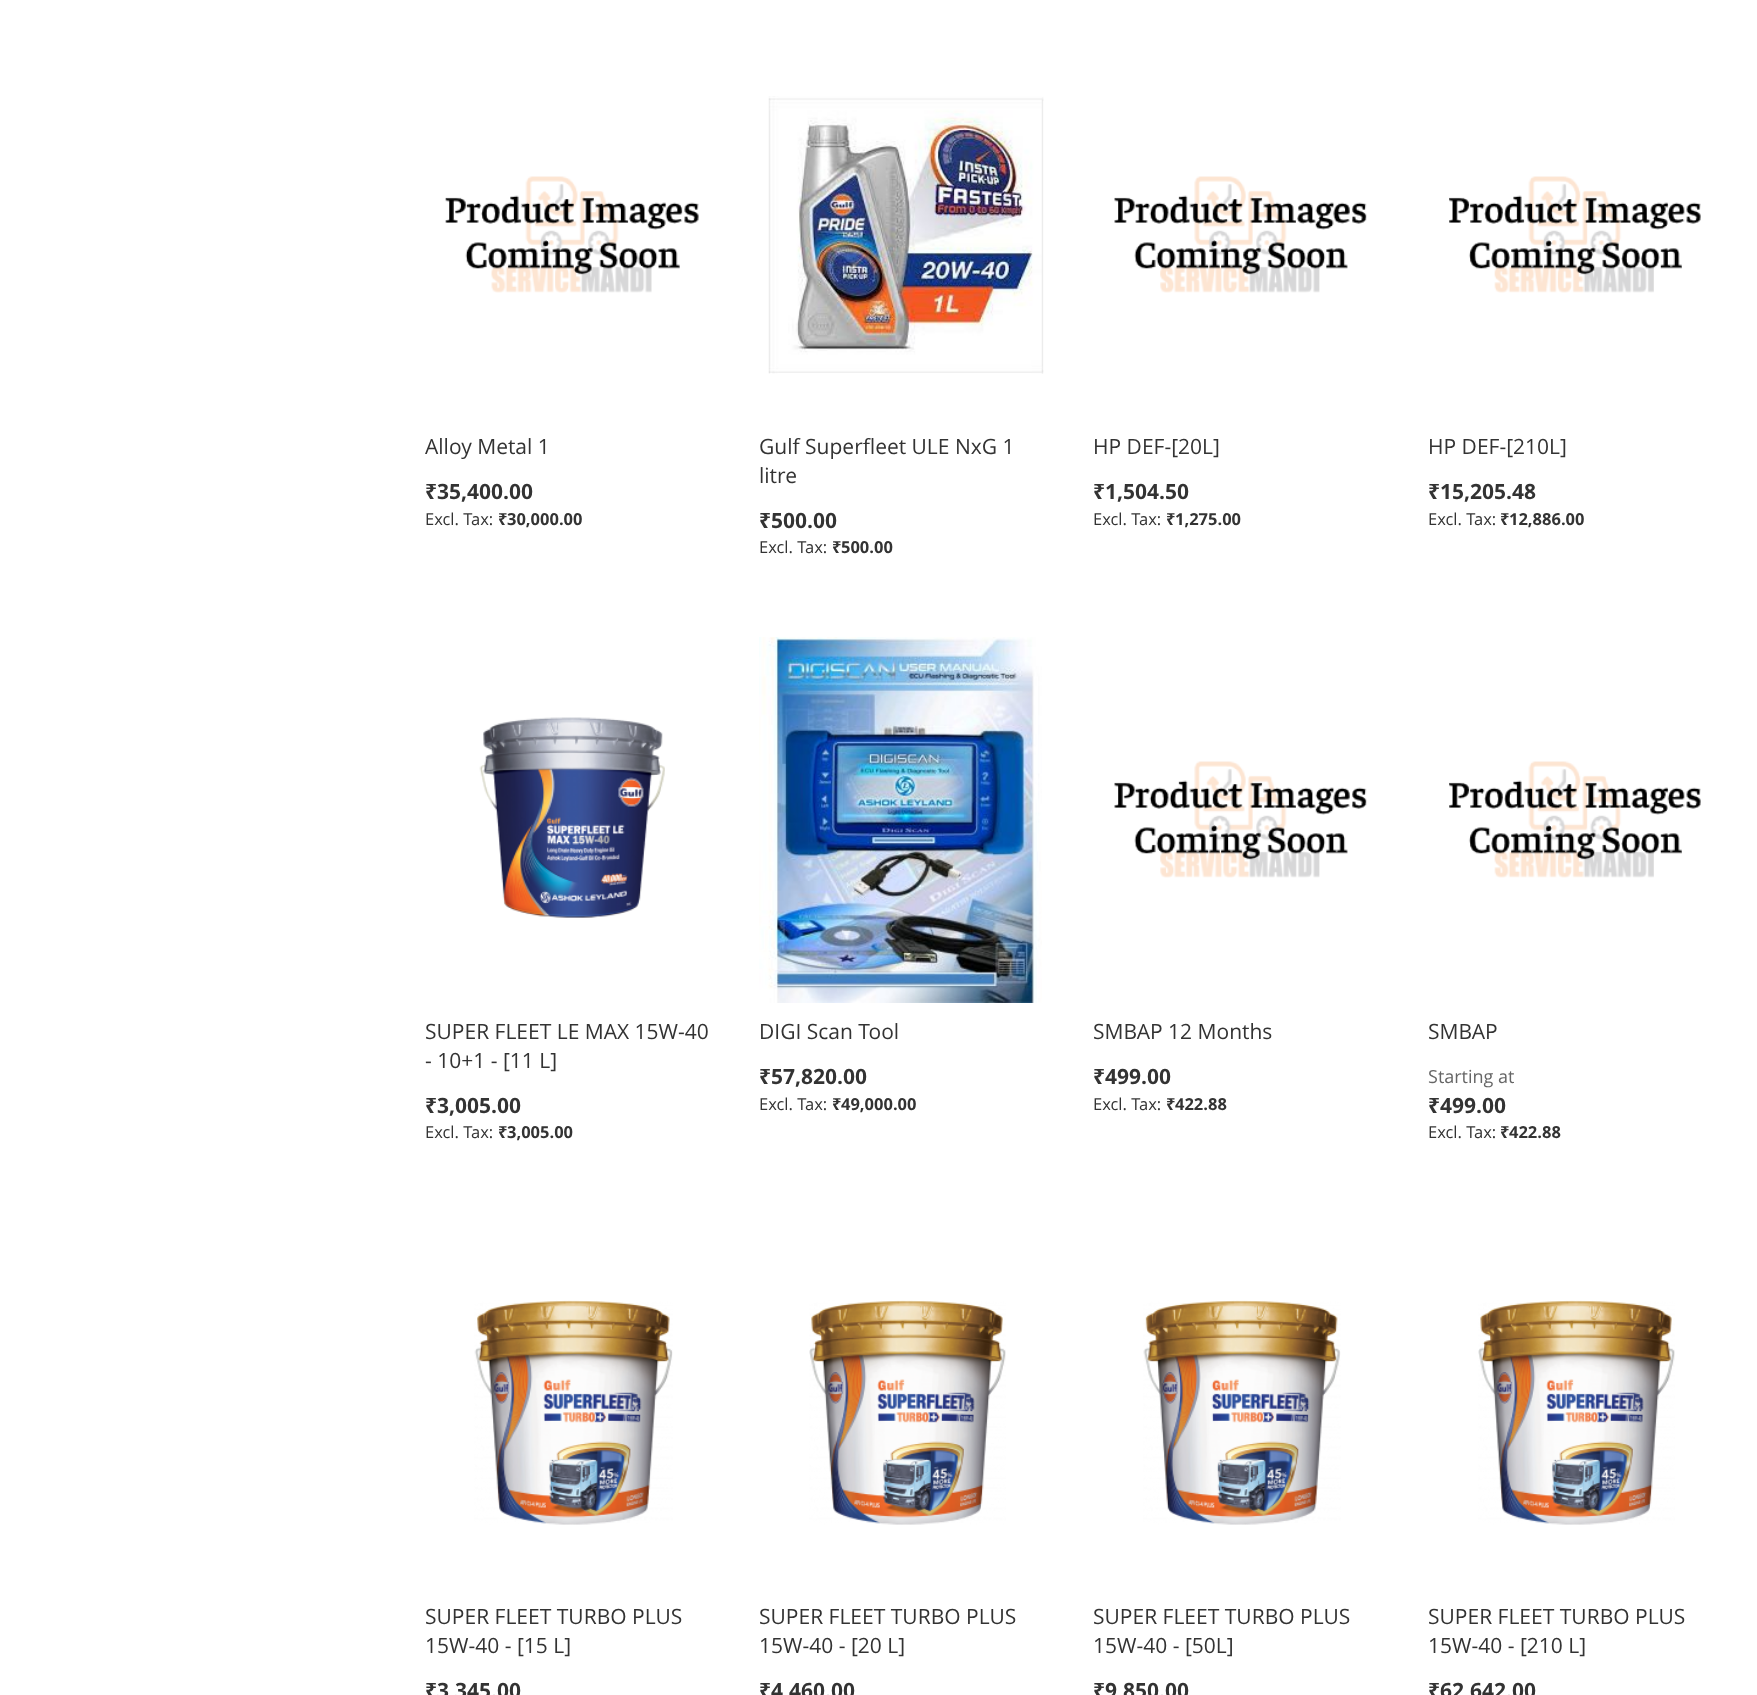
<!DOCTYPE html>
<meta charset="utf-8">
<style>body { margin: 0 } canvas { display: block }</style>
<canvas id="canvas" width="1757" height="1695"></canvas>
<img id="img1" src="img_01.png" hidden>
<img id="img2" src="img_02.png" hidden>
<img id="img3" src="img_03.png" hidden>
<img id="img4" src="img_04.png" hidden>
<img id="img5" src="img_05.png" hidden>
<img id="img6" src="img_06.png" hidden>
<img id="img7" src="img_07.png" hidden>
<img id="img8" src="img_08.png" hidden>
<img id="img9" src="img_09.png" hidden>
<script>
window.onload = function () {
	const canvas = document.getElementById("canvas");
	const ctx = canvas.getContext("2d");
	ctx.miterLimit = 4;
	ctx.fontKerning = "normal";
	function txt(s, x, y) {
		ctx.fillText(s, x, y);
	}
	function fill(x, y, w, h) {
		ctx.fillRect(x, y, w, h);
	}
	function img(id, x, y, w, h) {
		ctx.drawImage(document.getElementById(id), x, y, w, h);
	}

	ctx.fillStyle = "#FFFFFF";
	fill(0, 0, 1757, 1695);
	img("img1", 445, 176, 254, 117);
	img("img2", 768, 96, 276, 278);
	img("img3", 1114, 176, 253, 117);
	img("img4", 1449, 176, 252, 117);
	img("img5", 479, 717, 186, 201);
	img("img6", 759, 637, 283, 366);
	img("img3", 1114, 761, 253, 117);
	img("img4", 1449, 761, 252, 117);
	img("img7", 474, 1300, 199, 225);
	img("img8", 809, 1300, 197, 225);
	img("img9", 1143, 1300, 198, 225);
	img("img8", 1478, 1300, 197, 225);
	ctx.font = "21px Open Sans";
	ctx.fillStyle = "#333333";
	txt("Alloy Metal 1", 425, 454);
	ctx.font = "bold 21px Noto Sans";
	txt("₹", 425, 499);
	ctx.font = "bold 21px Open Sans";
	txt("35,400.00", 437, 499);
	ctx.font = "16.5px Open Sans";
	txt("Excl. Tax:", 425, 525);
	ctx.font = "bold 16.5px Noto Sans";
	txt("₹", 498, 525);
	ctx.font = "bold 16.5px Open Sans";
	txt("30,000.00", 507, 525);
	ctx.font = "21px Open Sans";
	txt("Gulf Superfleet ULE NxG 1", 759, 454);
	txt("litre", 759, 483);
	ctx.font = "bold 21px Noto Sans";
	txt("₹", 759, 528);
	ctx.font = "bold 21px Open Sans";
	txt("500.00", 771, 528);
	ctx.font = "16.5px Open Sans";
	txt("Excl. Tax:", 759, 553);
	ctx.font = "bold 16.5px Noto Sans";
	txt("₹", 832, 553);
	ctx.font = "bold 16.5px Open Sans";
	txt("500.00", 841, 553);
	ctx.font = "21px Open Sans";
	txt("HP DEF-[20L]", 1093, 454);
	ctx.font = "bold 21px Noto Sans";
	txt("₹", 1093, 499);
	ctx.font = "bold 21px Open Sans";
	txt("1,504.50", 1105, 499);
	ctx.font = "16.5px Open Sans";
	txt("Excl. Tax:", 1093, 525);
	ctx.font = "bold 16.5px Noto Sans";
	txt("₹", 1166, 525);
	ctx.font = "bold 16.5px Open Sans";
	txt("1,275.00", 1175, 525);
	ctx.font = "21px Open Sans";
	txt("HP DEF-[210L]", 1428, 454);
	ctx.font = "bold 21px Noto Sans";
	txt("₹", 1428, 499);
	ctx.font = "bold 21px Open Sans";
	txt("15,205.48", 1440, 499);
	ctx.font = "16.5px Open Sans";
	txt("Excl. Tax:", 1428, 525);
	ctx.font = "bold 16.5px Noto Sans";
	txt("₹", 1500, 525);
	ctx.font = "bold 16.5px Open Sans";
	txt("12,886.00", 1509, 525);
	ctx.font = "21px Open Sans";
	txt("SUPER FLEET LE MAX 15W-40", 425, 1039);
	txt("- 10+1 - [11 L]", 425, 1068);
	ctx.font = "bold 21px Noto Sans";
	txt("₹", 425, 1113);
	ctx.font = "bold 21px Open Sans";
	txt("3,005.00", 437, 1113);
	ctx.font = "16.5px Open Sans";
	txt("Excl. Tax:", 425, 1138);
	ctx.font = "bold 16.5px Noto Sans";
	txt("₹", 498, 1138);
	ctx.font = "bold 16.5px Open Sans";
	txt("3,005.00", 507, 1138);
	ctx.font = "21px Open Sans";
	txt("DIGI Scan Tool", 759, 1039);
	ctx.font = "bold 21px Noto Sans";
	txt("₹", 759, 1084);
	ctx.font = "bold 21px Open Sans";
	txt("57,820.00", 771, 1084);
	ctx.font = "16.5px Open Sans";
	txt("Excl. Tax:", 759, 1110);
	ctx.font = "bold 16.5px Noto Sans";
	txt("₹", 832, 1110);
	ctx.font = "bold 16.5px Open Sans";
	txt("49,000.00", 841, 1110);
	ctx.font = "21px Open Sans";
	txt("SMBAP 12 Months", 1093, 1039);
	ctx.font = "bold 21px Noto Sans";
	txt("₹", 1093, 1084);
	ctx.font = "bold 21px Open Sans";
	txt("499.00", 1105, 1084);
	ctx.font = "16.5px Open Sans";
	txt("Excl. Tax:", 1093, 1110);
	ctx.font = "bold 16.5px Noto Sans";
	txt("₹", 1166, 1110);
	ctx.font = "bold 16.5px Open Sans";
	txt("422.88", 1175, 1110);
	ctx.font = "21px Open Sans";
	txt("SMBAP", 1428, 1039);
	ctx.font = "18px Open Sans";
	ctx.fillStyle = "#666666";
	txt("Starting at", 1428, 1083);
	ctx.font = "bold 21px Noto Sans";
	ctx.fillStyle = "#333333";
	txt("₹", 1428, 1113);
	ctx.font = "bold 21px Open Sans";
	txt("499.00", 1440, 1113);
	ctx.font = "16.5px Open Sans";
	txt("Excl. Tax:", 1428, 1138);
	ctx.font = "bold 16.5px Noto Sans";
	txt("₹", 1500, 1138);
	ctx.font = "bold 16.5px Open Sans";
	txt("422.88", 1509, 1138);
	ctx.font = "21px Open Sans";
	txt("SUPER FLEET TURBO PLUS", 425, 1624);
	txt("15W-40 - [15 L]", 425, 1653);
	ctx.font = "bold 21px Noto Sans";
	txt("₹", 425, 1698);
	ctx.font = "bold 21px Open Sans";
	txt("3,345.00", 437, 1698);
	ctx.font = "21px Open Sans";
	txt("SUPER FLEET TURBO PLUS", 759, 1624);
	txt("15W-40 - [20 L]", 759, 1653);
	ctx.font = "bold 21px Noto Sans";
	txt("₹", 759, 1698);
	ctx.font = "bold 21px Open Sans";
	txt("4,460.00", 771, 1698);
	ctx.font = "21px Open Sans";
	txt("SUPER FLEET TURBO PLUS", 1093, 1624);
	txt("15W-40 - [50L]", 1093, 1653);
	ctx.font = "bold 21px Noto Sans";
	txt("₹", 1093, 1698);
	ctx.font = "bold 21px Open Sans";
	txt("9,850.00", 1105, 1698);
	ctx.font = "21px Open Sans";
	txt("SUPER FLEET TURBO PLUS", 1428, 1624);
	txt("15W-40 - [210 L]", 1428, 1653);
	ctx.font = "bold 21px Noto Sans";
	txt("₹", 1428, 1698);
	ctx.font = "bold 21px Open Sans";
	txt("62,642.00", 1440, 1698);
};
</script>
